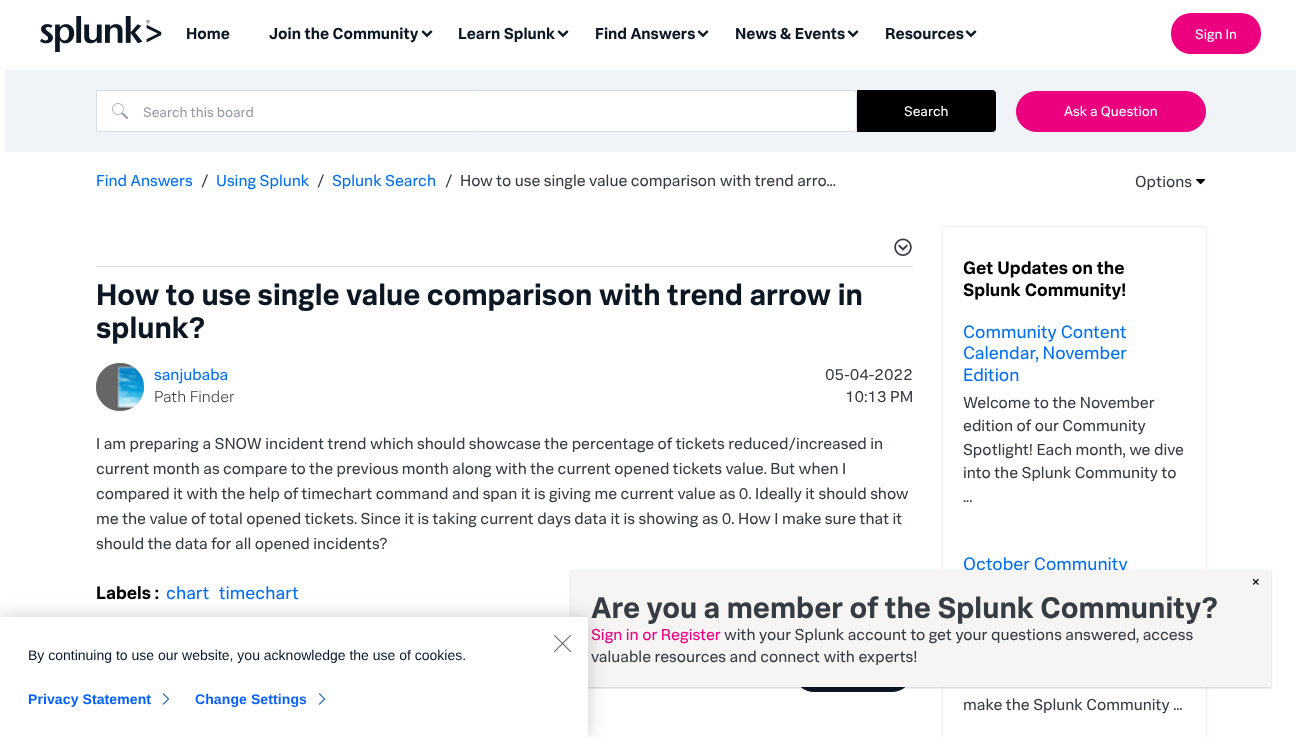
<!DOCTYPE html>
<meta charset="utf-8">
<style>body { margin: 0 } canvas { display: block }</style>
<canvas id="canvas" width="1301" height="737"></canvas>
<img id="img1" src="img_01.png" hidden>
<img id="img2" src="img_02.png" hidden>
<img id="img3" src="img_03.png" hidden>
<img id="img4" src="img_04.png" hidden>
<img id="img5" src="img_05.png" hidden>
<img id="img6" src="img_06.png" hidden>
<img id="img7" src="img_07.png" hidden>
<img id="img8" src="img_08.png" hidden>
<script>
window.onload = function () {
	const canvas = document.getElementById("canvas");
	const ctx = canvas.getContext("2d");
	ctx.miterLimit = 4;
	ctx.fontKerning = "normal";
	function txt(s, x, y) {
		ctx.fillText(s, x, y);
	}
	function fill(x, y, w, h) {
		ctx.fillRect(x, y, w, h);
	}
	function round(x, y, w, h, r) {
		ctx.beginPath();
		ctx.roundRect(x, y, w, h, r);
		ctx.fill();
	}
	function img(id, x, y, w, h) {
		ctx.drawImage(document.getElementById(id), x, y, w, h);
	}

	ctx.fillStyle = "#FFFFFF";
	fill(0, 0, 1301, 737);
	img("img1", 40, 16, 122, 36);
	img("img2", 421, 30, 12, 8);
	img("img2", 557, 30, 12, 8);
	img("img2", 697, 30, 12, 8);
	img("img2", 847, 30, 12, 8);
	img("img2", 965, 30, 12, 8);
	ctx.fillStyle = "#ED0080";
	round(1171, 13, 90, 41, 20);
	ctx.fillStyle = "#F0F3F7";
	fill(5, 70, 1291, 82);
	ctx.fillStyle = "#FFFFFF";
	ctx.beginPath();
	ctx.roundRect(96, 90, 761, 42, [0, 4, 4, 0]);
	ctx.fill();
	img("img3", 112, 103, 16, 16);
	ctx.beginPath();
	ctx.roundRect(96.5, 90.5, 760, 41, [0, 3.5, 3.5, 0]);
	ctx.strokeStyle = "#D5DCE5";
	ctx.stroke();
	ctx.fillStyle = "#000000";
	ctx.beginPath();
	ctx.roundRect(857, 90, 139, 42, [0, 4, 4, 0]);
	ctx.fill();
	ctx.fillStyle = "#ED0080";
	ctx.beginPath();
	ctx.roundRect(1016.5, 91.5, 189, 40, 20);
	ctx.fill();
	ctx.strokeStyle = "#ED0080";
	ctx.stroke();
	img("img4", 1196, 179, 10, 6);
	ctx.fillStyle = "#0C1724";
	ctx.beginPath();
	ctx.roundRect(793.5, 650.5, 119, 41, 20.5);
	ctx.fill();
	ctx.strokeStyle = "#0C1724";
	ctx.stroke();
	ctx.fillStyle = "rgba(0, 0, 0, 0.15)";
	ctx.filter = "blur(1.5px)";
	ctx.beginPath();
	ctx.roundRect(943, 227, 263, 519, 4);
	ctx.fill();
	ctx.filter = "none";
	ctx.fillStyle = "#FFFFFF";
	round(943, 227, 263, 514, 4);
	ctx.fillStyle = "rgba(0, 0, 0, 0.2)";
	ctx.filter = "blur(1px)";
	ctx.beginPath();
	ctx.rect(571, 571, 700, 117);
	ctx.fill();
	ctx.filter = "none";
	ctx.fillStyle = "#DADDE1";
	fill(96, 266, 817, 1);
	img("img5", 894, 238, 18, 18);
	ctx.fillStyle = "#999999";
	ctx.filter = "blur(0.5px)";
	ctx.beginPath();
	ctx.roundRect(96, 363, 48, 48, 24);
	ctx.fill();
	ctx.filter = "none";
	img("img6", 96, 363, 48, 48);
	ctx.font = "bold 16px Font";
	ctx.fillStyle = "#0C1724";
	txt("Home", 186, 39);
	txt("Join the Community", 269, 39);
	txt("Learn Splunk", 458, 39);
	txt("Find Answers", 595, 39);
	txt("News & Events", 735, 39);
	txt("Resources", 885, 39);
	ctx.font = "14px Font";
	ctx.fillStyle = "#FFFFFF";
	txt("Sign In", 1195, 39);
	ctx.fillStyle = "#969DAA";
	txt("Search this board", 143, 117);
	ctx.fillStyle = "#FFFFFF";
	txt("Search", 904, 116);
	txt("Ask a Question", 1064, 116);
	ctx.font = "16px Font";
	ctx.fillStyle = "#0070F3";
	txt("Find Answers", 96, 186);
	ctx.fillStyle = "#363C44";
	txt("/", 201, 186);
	ctx.fillStyle = "#0070F3";
	txt("Using Splunk", 216, 186);
	ctx.fillStyle = "#363C44";
	txt("/", 317, 186);
	ctx.fillStyle = "#0070F3";
	txt("Splunk Search", 332, 186);
	ctx.fillStyle = "#363C44";
	txt("/", 445, 186);
	txt("How to use single value comparison with trend arro...", 460, 186);
	txt("Options", 1135, 187);
	ctx.font = "bold 30px Font";
	ctx.fillStyle = "#0C1724";
	txt("How to use single value comparison with trend arrow in", 96, 305);
	txt("splunk?", 96, 338);
	ctx.font = "16px Font";
	ctx.fillStyle = "#0070F3";
	txt("sanjubaba", 154, 380);
	ctx.font = "300 16px Font";
	ctx.fillStyle = "#363C44";
	txt("Path Finder", 154, 402);
	ctx.font = "16px Font";
	txt("05-04-2022", 825, 380);
	txt("10:13 PM", 845, 402);
	txt("I am preparing a SNOW incident trend which should showcase the percentage of tickets reduced/increased in", 96, 449);
	txt("current month as compare to the previous month along with the current opened tickets value. But when I", 96, 474);
	txt("compared it with the help of timechart command and span it is giving me current value as 0. Ideally it should show", 96, 499);
	txt("me the value of total opened tickets. Since it is taking current days data it is showing as 0. How I make sure that it", 96, 524);
	txt("should the data for all opened incidents?", 96, 549);
	ctx.font = "bold 18px Font";
	ctx.fillStyle = "#000000";
	txt("Labels :", 96, 599);
	ctx.font = "18px Font";
	ctx.fillStyle = "#0070F3";
	txt("chart", 166, 599);
	txt("timechart", 219, 599);
	ctx.font = "bold 18px Font";
	ctx.fillStyle = "#000000";
	txt("Get Updates on the", 963, 274);
	txt("Splunk Community!", 963, 296);
	ctx.font = "18px Font";
	ctx.fillStyle = "#0070F3";
	txt("Community Content", 963, 338);
	txt("Calendar, November", 963, 359);
	txt("Edition", 963, 381);
	ctx.font = "16px Font";
	ctx.fillStyle = "#363C44";
	txt("Welcome to the November", 963, 408);
	txt("edition of our Community", 963, 431);
	txt("Spotlight! Each month, we dive", 963, 455);
	txt("into the Splunk Community to", 963, 478);
	txt("...", 963, 502);
	ctx.font = "18px Font";
	ctx.fillStyle = "#0070F3";
	txt("October Community", 963, 570);
	ctx.fillStyle = "#F7F4F4";
	fill(571, 570, 700, 117);
	ctx.font = "16px Font";
	ctx.fillStyle = "#000000";
	txt("×", 1251, 587);
	ctx.fillStyle = "#363C44";
	txt("valuable resources and connect with experts!", 591, 662);
	txt("with your Splunk account to get your questions answered, access", 724, 640);
	ctx.fillStyle = "#ED0080";
	txt("Sign in or Register", 591, 640);
	ctx.font = "bold 30px Font";
	ctx.fillStyle = "#363C44";
	txt("Are you a member of the Splunk Community?", 591, 618);
	ctx.font = "16px Font";
	txt("make the Splunk Community ...", 963, 710);
	ctx.fillStyle = "rgba(0, 0, 0, 0.2)";
	ctx.filter = "blur(9px)";
	ctx.beginPath();
	ctx.rect(0, 617, 588, 120);
	ctx.fill();
	ctx.filter = "none";
	ctx.fillStyle = "#FFFFFF";
	fill(0, 617, 588, 120);
	img("img7", 553, 634, 19, 19);
	ctx.font = "14px Liberation Sans";
	ctx.fillStyle = "#07182D";
	txt("By continuing to use our website, you acknowledge the use of cookies.", 28, 660);
	ctx.letterSpacing = "0.1px";
	ctx.font = "bold 14px Liberation Sans";
	ctx.fillStyle = "#0060FF";
	txt("Privacy Statement", 28, 704);
	img("img8", 162, 693, 7, 12);
	ctx.fillStyle = "#0A60FF";
	txt("Change Settings", 195, 704);
	img("img8", 318, 693, 7, 12);
};
</script>
